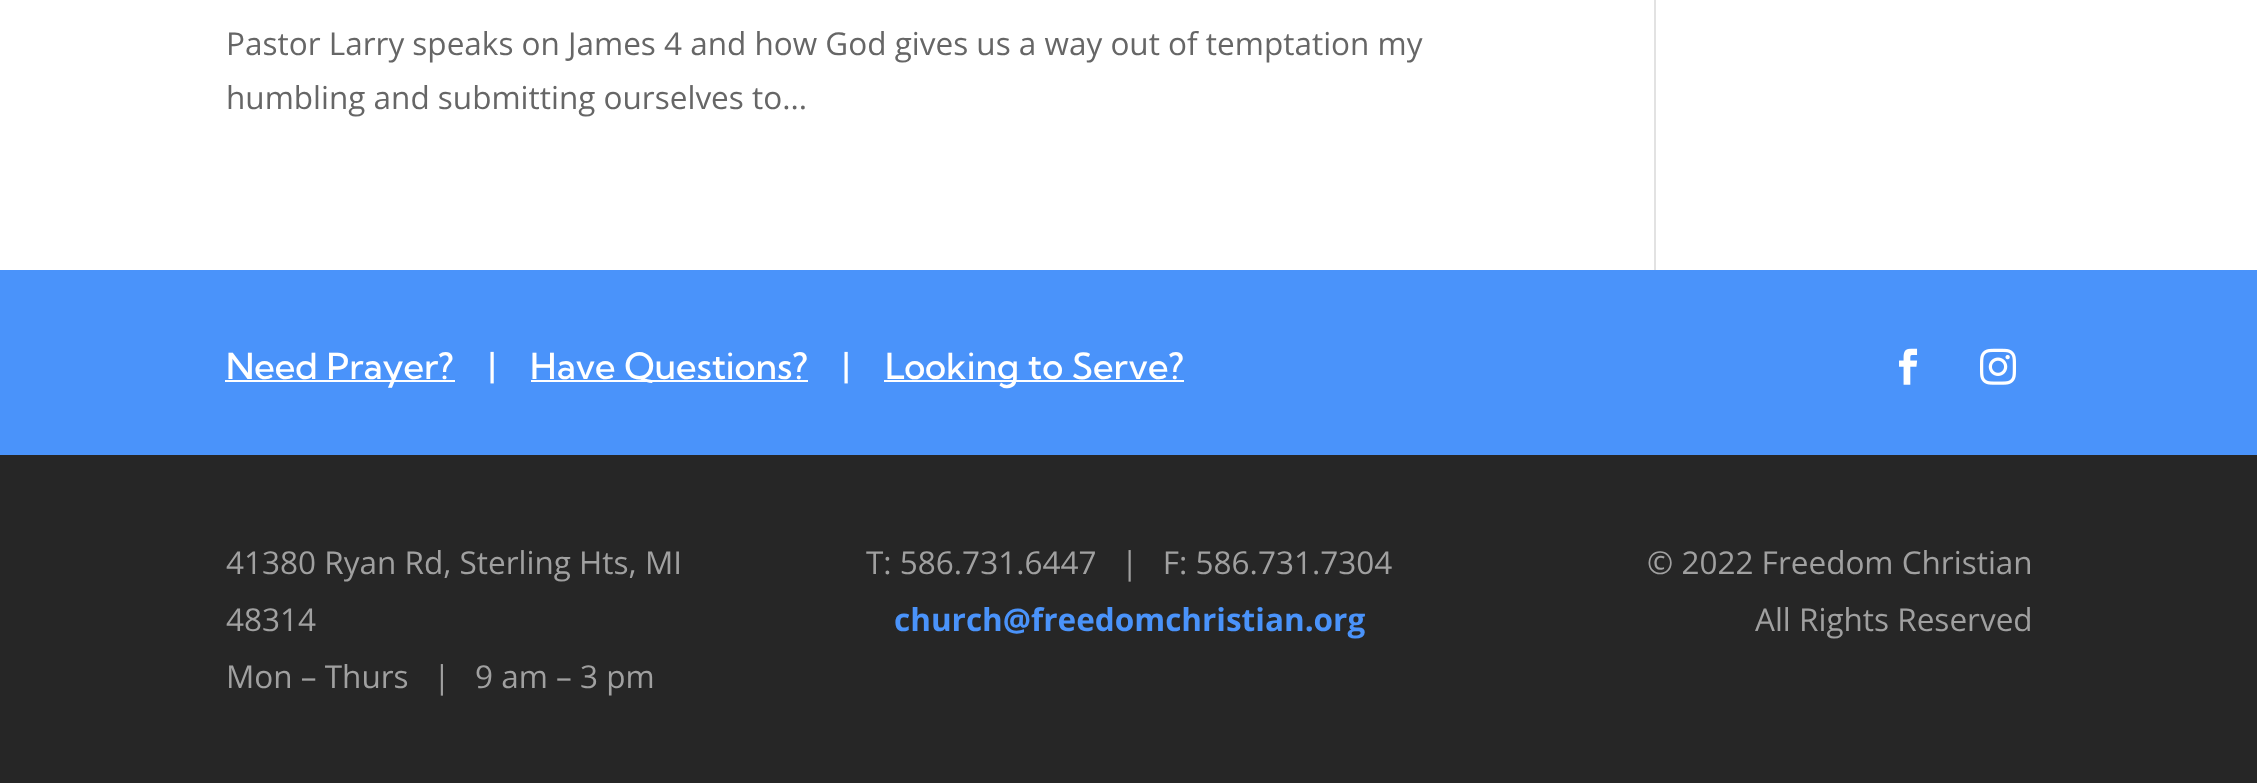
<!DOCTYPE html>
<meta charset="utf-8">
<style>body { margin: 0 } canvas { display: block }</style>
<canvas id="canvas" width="2257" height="783"></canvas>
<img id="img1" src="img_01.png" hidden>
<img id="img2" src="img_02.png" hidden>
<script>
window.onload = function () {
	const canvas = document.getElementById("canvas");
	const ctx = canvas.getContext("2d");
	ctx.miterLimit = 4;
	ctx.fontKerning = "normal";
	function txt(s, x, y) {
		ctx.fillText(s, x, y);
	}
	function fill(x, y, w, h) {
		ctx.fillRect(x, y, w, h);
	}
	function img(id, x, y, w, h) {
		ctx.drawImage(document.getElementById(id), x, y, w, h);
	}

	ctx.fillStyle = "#FFFFFF";
	fill(0, 0, 2257, 783);
	ctx.fillStyle = "#E2E2E2";
	fill(1654, 0, 2, 270);
	ctx.fillStyle = "#4A93FA";
	fill(0, 270, 2257, 185);
	ctx.fillStyle = "#FFFFFF";
	fill(225, 380, 230, 2);
	fill(531, 380, 277, 2);
	fill(884, 380, 300, 2);
	img("img1", 1899, 348, 19, 37);
	img("img2", 1980, 348, 36, 37);
	ctx.fillStyle = "#262626";
	fill(0, 455, 2257, 328);
	ctx.font = "31.5px Open Sans";
	ctx.fillStyle = "#666666";
	txt("Pastor Larry speaks on James 4 and how God gives us a way out of temptation my", 226, 55);
	txt("humbling and submitting ourselves to...", 226, 109);
	ctx.font = "500 36px Kumbh Sans";
	ctx.fillStyle = "#FFFFFF";
	txt("Need Prayer?", 226, 379);
	txt("|", 488, 379);
	txt("Have Questions?", 530, 379);
	txt("|", 842, 379);
	txt("Looking to Serve?", 885, 379);
	ctx.font = "31.5px Open Sans";
	ctx.fillStyle = "#A0A0A0";
	txt("41380 Ryan Rd, Sterling Hts, MI", 226, 574);
	txt("48314", 226, 631);
	txt("Mon – Thurs   |   9 am – 3 pm", 226, 688);
	txt("T: 586.731.6447   |   F: 586.731.7304", 866, 574);
	ctx.font = "bold 31.5px Open Sans";
	ctx.fillStyle = "#4A93FA";
	txt("church@freedomchristian.org", 894, 631);
	ctx.font = "31.5px Open Sans";
	ctx.fillStyle = "#A0A0A0";
	txt("© 2022 Freedom Christian", 1647, 574);
	txt("All Rights Reserved", 1755, 631);
};
</script>
